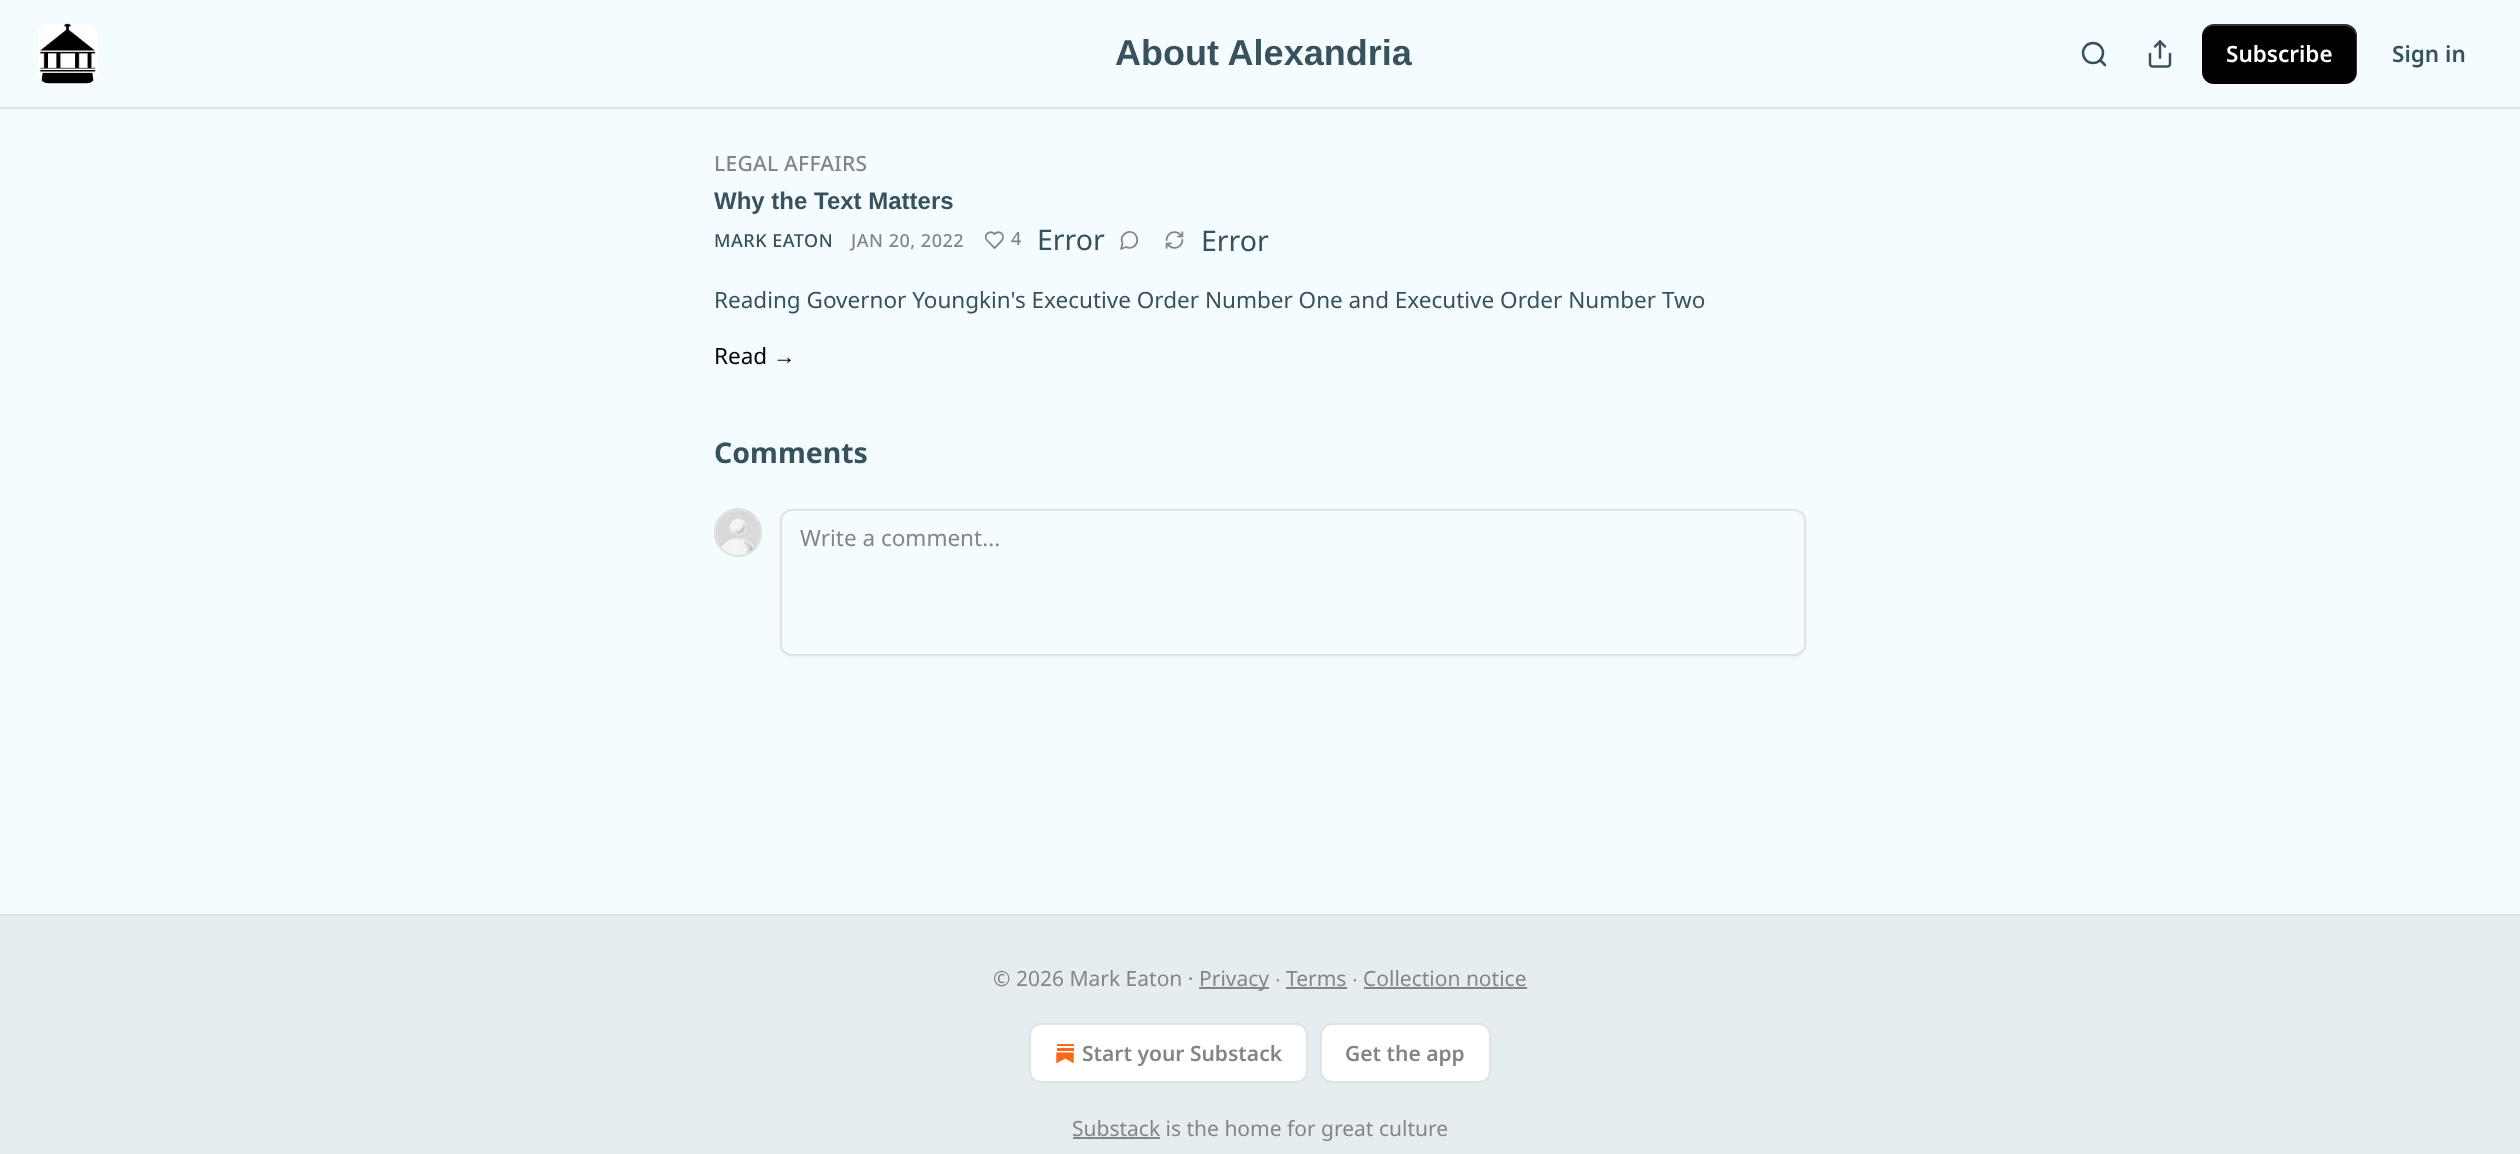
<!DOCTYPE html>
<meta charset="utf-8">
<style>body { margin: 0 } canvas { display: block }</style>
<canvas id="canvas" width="2520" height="1154"></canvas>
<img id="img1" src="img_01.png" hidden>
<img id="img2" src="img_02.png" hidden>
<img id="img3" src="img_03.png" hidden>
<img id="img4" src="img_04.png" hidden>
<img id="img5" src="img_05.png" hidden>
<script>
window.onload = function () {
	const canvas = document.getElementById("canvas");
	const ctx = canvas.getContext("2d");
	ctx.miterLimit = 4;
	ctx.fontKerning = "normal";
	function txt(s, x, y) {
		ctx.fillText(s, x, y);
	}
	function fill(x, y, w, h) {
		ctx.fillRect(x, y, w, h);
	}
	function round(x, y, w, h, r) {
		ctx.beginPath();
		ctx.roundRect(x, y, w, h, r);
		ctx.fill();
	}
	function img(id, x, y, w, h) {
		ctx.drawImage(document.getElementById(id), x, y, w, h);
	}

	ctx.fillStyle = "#F5FCFF";
	fill(0, 0, 2520, 1154);
	ctx.fillStyle = "#DDE3E6";
	fill(0, 107, 2520, 2);
	ctx.fillStyle = "#FFFFFF";
	round(38, 24, 60, 60, 12);
	img("img1", 38, 23, 59, 61);
	ctx.beginPath();
	ctx.arc(2093, 53, 10, 0, Math.PI * 2);
	ctx.strokeStyle = "#37525D";
	ctx.lineWidth = 2.5;
	ctx.stroke();
	ctx.beginPath();
	ctx.moveTo(2105, 65);
	ctx.lineTo(2100, 60);
	ctx.lineCap = "round";
	ctx.lineJoin = "round";
	ctx.stroke();
	img("img2", 2148, 40, 24, 28);
	ctx.fillStyle = "#000000";
	round(2202, 24, 155, 60, 12);
	ctx.fillStyle = "rgba(0, 0, 0, 0.1)";
	ctx.beginPath();
	ctx.moveTo(2202, 70);
	ctx.lineTo(2202, 72);
	ctx.bezierCurveTo(2202, 79, 2207, 84, 2214, 84);
	ctx.lineTo(2345, 84);
	ctx.bezierCurveTo(2352, 84, 2357, 79, 2357, 72);
	ctx.lineTo(2357, 36);
	ctx.bezierCurveTo(2357, 34, 2356, 31, 2355, 29);
	ctx.lineTo(2356, 34);
	ctx.lineTo(2356, 70);
	ctx.bezierCurveTo(2356, 77, 2351, 82, 2344, 82);
	ctx.lineTo(2214, 82);
	ctx.bezierCurveTo(2207, 82, 2202, 77, 2202, 70);
	ctx.closePath();
	ctx.fill();
	ctx.fillStyle = "rgba(255, 255, 255, 0.2)";
	ctx.beginPath();
	ctx.moveTo(2214, 26);
	ctx.lineTo(2344, 26);
	ctx.bezierCurveTo(2351, 26, 2356, 31, 2356, 38);
	ctx.lineTo(2356, 74);
	ctx.lineTo(2355, 79);
	ctx.bezierCurveTo(2356, 77, 2357, 74, 2357, 72);
	ctx.lineTo(2357, 36);
	ctx.bezierCurveTo(2357, 29, 2352, 24, 2345, 24);
	ctx.lineTo(2214, 24);
	ctx.bezierCurveTo(2207, 24, 2202, 29, 2202, 36);
	ctx.lineTo(2202, 38);
	ctx.bezierCurveTo(2202, 31, 2207, 26, 2214, 26);
	ctx.closePath();
	ctx.fill();
	ctx.beginPath();
	ctx.moveTo(1000.5, 242);
	ctx.bezierCurveTo(1007, 235.5, 999.5, 229, 994.5, 234);
	ctx.bezierCurveTo(991, 230.5, 984.5, 233, 986, 238.5);
	ctx.bezierCurveTo(987, 241, 992.5, 245.5, 994.5, 248);
	ctx.closePath();
	ctx.strokeStyle = "#828687";
	ctx.lineWidth = 1.8;
	ctx.stroke();
	ctx.beginPath();
	ctx.moveTo(1126, 247);
	ctx.bezierCurveTo(1130, 249, 1134.5, 247.5, 1136.5, 243.5);
	ctx.bezierCurveTo(1137.5, 241.5, 1137.5, 239, 1136.5, 236.5);
	ctx.bezierCurveTo(1132.5, 227, 1117.5, 234, 1122.5, 243.5);
	ctx.lineTo(1121, 249);
	ctx.closePath();
	ctx.stroke();
	img("img3", 1165, 231, 19, 18);
	ctx.beginPath();
	ctx.arc(738, 533, 23, 0, Math.PI * 2);
	ctx.strokeStyle = "#DDE3E6";
	ctx.lineWidth = 2;
	ctx.stroke();
	img("img4", 714, 508, 48, 47);
	ctx.beginPath();
	ctx.arc(738, 533, 23, 0, Math.PI * 2);
	ctx.stroke();
	ctx.fillStyle = "rgba(0, 0, 0, 0.05)";
	ctx.filter = "blur(1.5px)";
	ctx.beginPath();
	ctx.roundRect(780, 510, 1026, 147, 12);
	ctx.fill();
	ctx.filter = "none";
	ctx.fillStyle = "#F5FCFF";
	ctx.beginPath();
	ctx.roundRect(781, 510, 1024, 145, 11);
	ctx.fill();
	ctx.lineJoin = "miter";
	ctx.stroke();
	ctx.fillStyle = "#E6EDF0";
	fill(0, 916, 2520, 238);
	ctx.fillStyle = "#DDE3E6";
	fill(0, 914, 2520, 2);
	ctx.fillStyle = "#828687";
	fill(1199, 987, 70, 2);
	fill(1286, 987, 61, 2);
	fill(1364, 987, 163, 2);
	ctx.fillStyle = "#FFFFFF";
	ctx.beginPath();
	ctx.roundRect(1030, 1024, 277, 58, 11);
	ctx.fill();
	ctx.stroke();
	img("img5", 1056, 1044, 18, 20);
	ctx.beginPath();
	ctx.roundRect(1321, 1024, 169, 58, 11);
	ctx.fill();
	ctx.stroke();
	ctx.fillStyle = "#828687";
	fill(1073, 1137, 87, 2);
	ctx.save();
	ctx.beginPath();
	ctx.rect(1116, 29, 296, 49);
	ctx.clip();
	ctx.font = "bold 36px Liberation Sans";
	ctx.fillStyle = "#37525D";
	txt("About Alexandria", 1115, 65);
	ctx.restore();
	ctx.font = "600 22.5px Noto Sans";
	ctx.fillStyle = "#FFFFFF";
	txt("Subscribe", 2226, 62);
	ctx.fillStyle = "#37525D";
	txt("Sign in", 2392, 62);
	ctx.letterSpacing = "0.25px";
	ctx.font = "500 21px Noto Sans";
	ctx.fillStyle = "#828687";
	txt("LEGAL AFFAIRS", 714, 171);
	ctx.letterSpacing = "0px";
	ctx.font = "bold 24px Liberation Sans";
	ctx.fillStyle = "#37525D";
	txt("Why the Text Matters", 714, 209);
	ctx.letterSpacing = "0.5px";
	ctx.font = "500 18px Noto Sans";
	txt("MARK EATON", 714, 247);
	ctx.fillStyle = "#828687";
	txt("JAN 20, 2022", 851, 247);
	txt("4", 1011, 245);
	ctx.letterSpacing = "0px";
	ctx.font = "28.5px Noto Sans";
	ctx.fillStyle = "#37525D";
	txt("Error", 1037, 250);
	txt("Error", 1201, 251);
	ctx.font = "22.5px Noto Sans";
	txt("Reading Governor Youngkin's Executive Order Number One and Executive Order Number Two", 714, 308);
	ctx.fillStyle = "#000000";
	txt("Read", 714, 364);
	ctx.font = "22.5px Liberation Sans";
	txt("→", 773, 364);
	ctx.font = "bold 28.5px Noto Sans";
	ctx.fillStyle = "#37525D";
	txt("Comments", 714, 463);
	ctx.font = "22.5px Noto Sans";
	ctx.fillStyle = "#828687";
	txt("Write a comment...", 800, 546);
	ctx.font = "21px Noto Sans";
	txt("© 2026 Mark Eaton ·", 993, 986);
	txt("Privacy", 1199, 986);
	ctx.font = "21px Liberation Sans";
	txt("∙", 1275, 986);
	ctx.font = "21px Noto Sans";
	txt("Terms", 1286, 986);
	ctx.font = "21px Liberation Sans";
	txt("∙", 1352, 986);
	ctx.font = "21px Noto Sans";
	txt("Collection notice", 1363, 986);
	ctx.font = "600 21px Noto Sans";
	txt("Start your Substack", 1082, 1061);
	txt("Get the app", 1345, 1061);
	ctx.font = "21px Noto Sans";
	txt("Substack is the home for great culture", 1072, 1136);
};
</script>
